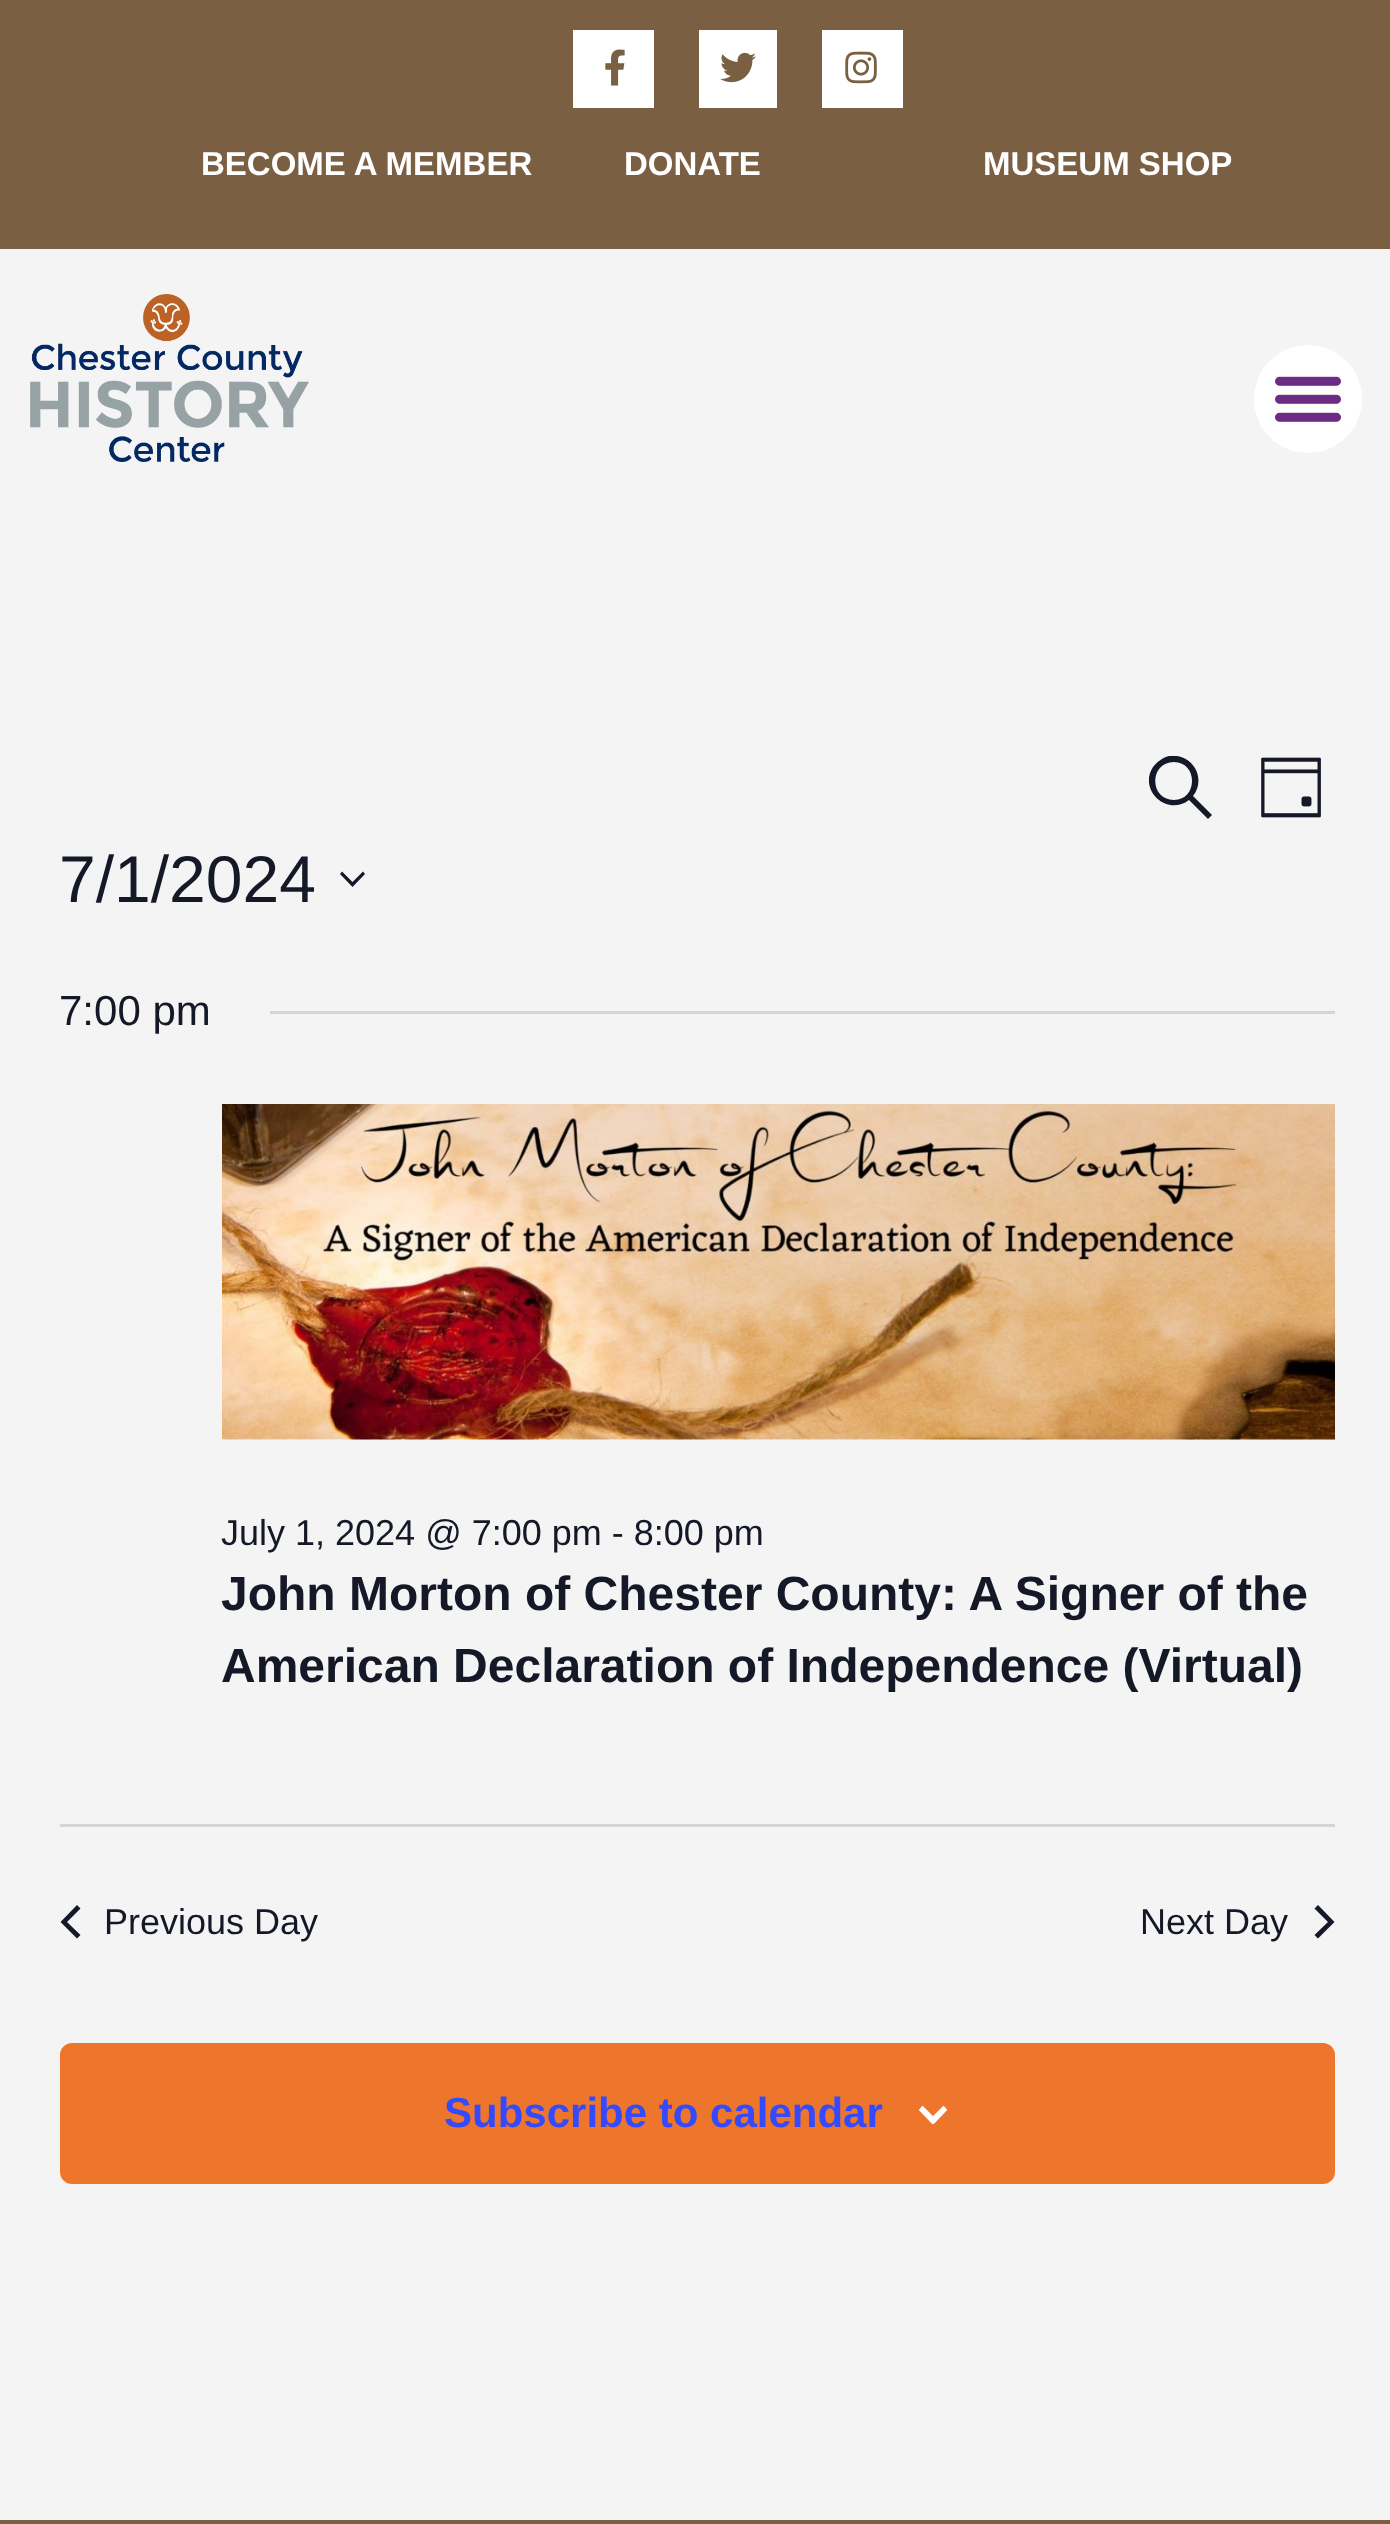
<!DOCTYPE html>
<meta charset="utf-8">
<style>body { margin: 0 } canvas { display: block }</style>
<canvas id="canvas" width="1390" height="2524"></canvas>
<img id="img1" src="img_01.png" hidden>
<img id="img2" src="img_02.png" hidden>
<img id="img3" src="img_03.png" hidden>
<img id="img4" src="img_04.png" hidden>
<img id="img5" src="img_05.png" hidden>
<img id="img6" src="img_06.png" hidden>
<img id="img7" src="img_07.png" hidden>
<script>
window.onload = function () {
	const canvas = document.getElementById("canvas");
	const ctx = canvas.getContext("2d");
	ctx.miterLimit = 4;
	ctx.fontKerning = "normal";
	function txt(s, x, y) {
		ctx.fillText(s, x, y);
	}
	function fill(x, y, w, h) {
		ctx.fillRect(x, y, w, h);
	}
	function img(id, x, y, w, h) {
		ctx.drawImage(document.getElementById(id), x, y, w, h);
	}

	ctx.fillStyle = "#F4F4F4";
	fill(0, 0, 1390, 2524);
	ctx.fillStyle = "#7A5F42";
	fill(0, 0, 1390, 249);
	ctx.fillStyle = "#FFFFFF";
	fill(573, 30, 81, 78);
	img("img1", 605, 49, 20, 37);
	fill(699, 30, 78, 78);
	img("img2", 720, 52, 36, 31);
	fill(822, 30, 81, 78);
	img("img3", 845, 51, 32, 33);
	img("img4", 30, 294, 279, 168);
	ctx.beginPath();
	ctx.arc(1308, 399, 54, 0, Math.PI * 2);
	ctx.fill();
	img("img5", 1275, 376, 66, 46);
	ctx.save();
	ctx.beginPath();
	ctx.rect(1149, 756, 63, 63);
	ctx.clip();
	ctx.fillStyle = "#141827";
	ctx.beginPath();
	ctx.moveTo(1193, 796);
	ctx.lineTo(1212, 815);
	ctx.lineTo(1208, 819);
	ctx.lineTo(1189, 800);
	ctx.bezierCurveTo(1167, 817, 1138, 790, 1153, 767);
	ctx.bezierCurveTo(1157, 762, 1162, 758, 1169, 756);
	ctx.bezierCurveTo(1177, 755, 1185, 757, 1191, 763);
	ctx.bezierCurveTo(1200, 772, 1201, 786, 1193, 796);
	ctx.closePath();
	ctx.moveTo(1174, 762);
	ctx.bezierCurveTo(1149, 762, 1149, 800, 1174, 800);
	ctx.bezierCurveTo(1198, 800, 1198, 762, 1174, 762);
	ctx.closePath();
	ctx.fill("evenodd");
	ctx.restore();
	img("img6", 1261, 757, 60, 61);
	ctx.fillStyle = "#141827";
	ctx.beginPath();
	ctx.moveTo(342, 871.5);
	ctx.lineTo(352.5, 882);
	ctx.lineTo(363, 871.5);
	ctx.lineTo(365, 874);
	ctx.lineTo(352.5, 887);
	ctx.lineTo(340, 874);
	ctx.closePath();
	ctx.fill("evenodd");
	ctx.fillStyle = "#D5D5D5";
	fill(270, 1011, 1065, 3);
	img("img7", 222, 1104, 1113, 336);
	fill(60, 1824, 1275, 3);
	ctx.fillStyle = "#141827";
	ctx.beginPath();
	ctx.moveTo(80.5, 1935);
	ctx.lineTo(77, 1938.5);
	ctx.lineTo(60.5, 1922);
	ctx.lineTo(77, 1905);
	ctx.lineTo(80.5, 1908.5);
	ctx.lineTo(67, 1922);
	ctx.closePath();
	ctx.fill();
	ctx.beginPath();
	ctx.moveTo(1314.5, 1908.5);
	ctx.lineTo(1318, 1905);
	ctx.lineTo(1334.5, 1922);
	ctx.lineTo(1318, 1938.5);
	ctx.lineTo(1314.5, 1935);
	ctx.lineTo(1328, 1922);
	ctx.closePath();
	ctx.fill();
	ctx.fillStyle = "#EE762C";
	ctx.beginPath();
	ctx.roundRect(61.5, 2044.5, 1272, 138, 10.5);
	ctx.fill();
	ctx.strokeStyle = "#EE762C";
	ctx.lineWidth = 3;
	ctx.stroke();
	ctx.fillStyle = "#FFFFFF";
	ctx.beginPath();
	ctx.moveTo(922.5, 2107.5);
	ctx.lineTo(933, 2118);
	ctx.lineTo(943.5, 2107.5);
	ctx.lineTo(945.5, 2110);
	ctx.lineTo(933, 2123);
	ctx.lineTo(920.5, 2110);
	ctx.closePath();
	ctx.fill("evenodd");
	ctx.save();
	ctx.beginPath();
	ctx.rect(918, 2106, 30, 18);
	ctx.clip();
	ctx.beginPath();
	ctx.moveTo(922.5, 2107.5);
	ctx.lineTo(933, 2118);
	ctx.lineTo(943.5, 2107.5);
	ctx.lineTo(945.5, 2110);
	ctx.lineTo(933, 2123);
	ctx.lineTo(920.5, 2110);
	ctx.closePath();
	ctx.strokeStyle = "#FFFFFF";
	ctx.lineWidth = 2.6;
	ctx.stroke();
	ctx.restore();
	ctx.fillStyle = "#7A5F42";
	fill(0, 2520, 1390, 4);
	ctx.font = "bold 33px Liberation Sans";
	ctx.fillStyle = "#FFFFFF";
	txt("BECOME A MEMBER", 201, 175);
	txt("DONATE", 624, 175);
	txt("MUSEUM SHOP", 983, 175);
	ctx.font = "66px Liberation Sans";
	ctx.fillStyle = "#141827";
	txt("7/1/2024", 59, 902);
	ctx.font = "42px Liberation Sans";
	txt("7:00 pm", 59, 1025);
	ctx.font = "36px Liberation Sans";
	txt("July 1, 2024 @ 7:00 pm - 8:00 pm", 221, 1545);
	ctx.font = "bold 48px Liberation Sans";
	txt("John Morton of Chester County: A Signer of the", 221, 1610);
	txt("American Declaration of Independence (Virtual)", 221, 1682);
	ctx.font = "36px Liberation Sans";
	txt("Previous Day", 104, 1934);
	txt("Next Day", 1140, 1934);
	ctx.font = "bold 42px Liberation Sans";
	ctx.fillStyle = "#334AFF";
	txt("Subscribe to calendar", 444, 2127);
};
</script>
